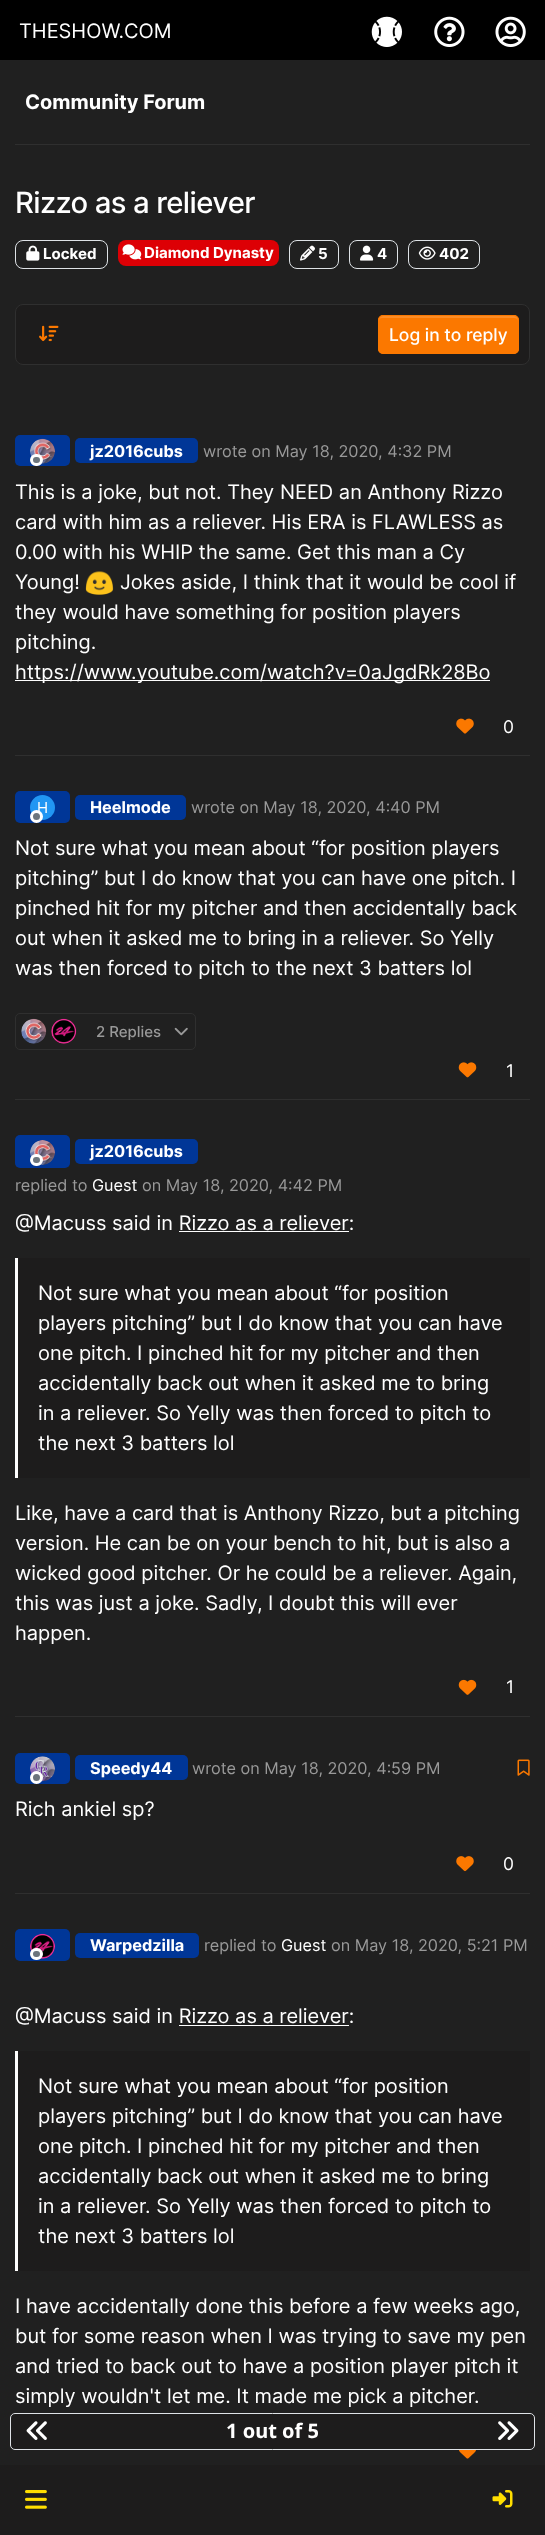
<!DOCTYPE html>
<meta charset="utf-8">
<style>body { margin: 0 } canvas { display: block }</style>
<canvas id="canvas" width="545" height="2535"></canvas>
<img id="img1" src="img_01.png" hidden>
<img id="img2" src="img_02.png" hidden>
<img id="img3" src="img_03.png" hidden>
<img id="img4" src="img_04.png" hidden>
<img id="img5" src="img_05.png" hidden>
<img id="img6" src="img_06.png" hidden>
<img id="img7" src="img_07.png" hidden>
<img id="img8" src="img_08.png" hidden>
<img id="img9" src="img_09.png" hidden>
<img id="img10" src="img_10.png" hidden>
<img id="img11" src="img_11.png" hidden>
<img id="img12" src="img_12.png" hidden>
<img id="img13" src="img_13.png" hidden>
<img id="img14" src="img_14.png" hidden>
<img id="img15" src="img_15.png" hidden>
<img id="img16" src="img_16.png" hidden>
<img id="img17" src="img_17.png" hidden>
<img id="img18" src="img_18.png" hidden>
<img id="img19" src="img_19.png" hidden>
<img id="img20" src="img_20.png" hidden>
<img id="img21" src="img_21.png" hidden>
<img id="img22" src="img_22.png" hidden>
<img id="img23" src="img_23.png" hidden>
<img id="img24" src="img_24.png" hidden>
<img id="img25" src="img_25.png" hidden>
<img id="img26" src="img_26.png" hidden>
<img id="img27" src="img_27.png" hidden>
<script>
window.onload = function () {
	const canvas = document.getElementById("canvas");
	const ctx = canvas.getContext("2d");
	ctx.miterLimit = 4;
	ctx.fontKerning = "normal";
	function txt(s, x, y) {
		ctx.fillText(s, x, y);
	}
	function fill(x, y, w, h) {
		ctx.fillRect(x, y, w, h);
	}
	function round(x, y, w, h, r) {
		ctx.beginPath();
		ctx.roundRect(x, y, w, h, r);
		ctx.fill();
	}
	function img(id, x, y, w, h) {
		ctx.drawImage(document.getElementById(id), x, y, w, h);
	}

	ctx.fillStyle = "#202020";
	fill(0, 0, 545, 2535);
	ctx.fillStyle = "#000000";
	fill(0, 0, 545, 60);
	img("img1", 371, 16, 31, 31);
	img("img2", 434, 16, 31, 31);
	img("img3", 495, 16, 31, 31);
	ctx.fillStyle = "#2F2F2F";
	fill(15, 144, 515, 1);
	ctx.beginPath();
	ctx.roundRect(15.5, 240.5, 92, 28, 7.5);
	ctx.strokeStyle = "#DEE2E6";
	ctx.stroke();
	img("img4", 26, 245, 14, 16);
	ctx.fillStyle = "#DD0005";
	round(118, 240, 161, 26, 8);
	img("img5", 122, 244, 20, 16);
	ctx.beginPath();
	ctx.roundRect(289.5, 240.5, 49, 28, 7.5);
	ctx.stroke();
	img("img6", 300, 245, 15, 16);
	ctx.beginPath();
	ctx.roundRect(349.5, 240.5, 48, 28, 7.5);
	ctx.stroke();
	img("img7", 360, 245, 14, 16);
	ctx.beginPath();
	ctx.roundRect(408.5, 240.5, 71, 28, 7.5);
	ctx.stroke();
	img("img8", 418, 246, 18, 14);
	ctx.fillStyle = "#1D1C1C";
	ctx.beginPath();
	ctx.roundRect(15.5, 304.5, 514, 60, 7.5);
	ctx.fill();
	ctx.strokeStyle = "#2F2F2F";
	ctx.stroke();
	img("img9", 39, 325, 20, 17);
	ctx.fillStyle = "#FB7800";
	round(378, 315, 141, 39, 5);
	ctx.fillStyle = "#FC8C26";
	ctx.beginPath();
	ctx.moveTo(382, 318);
	ctx.lineTo(514, 318);
	ctx.bezierCurveTo(516, 318, 518, 319, 518, 321);
	ctx.lineTo(518, 320);
	ctx.bezierCurveTo(518, 318, 516, 316, 514, 316);
	ctx.lineTo(383, 316);
	ctx.bezierCurveTo(381, 316, 379, 318, 379, 320);
	ctx.lineTo(379, 321);
	ctx.bezierCurveTo(379, 319, 380, 318, 382, 318);
	ctx.closePath();
	ctx.fill();
	ctx.beginPath();
	ctx.roundRect(378.5, 315.5, 140, 38, 4.5);
	ctx.strokeStyle = "#FB7800";
	ctx.stroke();
	ctx.fillStyle = "#003697";
	round(15, 435, 55, 31, 5);
	img("img10", 30, 438, 25, 26);
	ctx.fillStyle = "#6C757D";
	ctx.beginPath();
	ctx.roundRect(31.5, 455.5, 10, 9, 4.5);
	ctx.fill();
	ctx.strokeStyle = "#FFFFFF";
	ctx.lineWidth = 3;
	ctx.stroke();
	ctx.fillStyle = "#003697";
	round(75, 438, 123, 25, 5);
	img("img11", 85, 571, 29, 24);
	ctx.fillStyle = "#FFFFFF";
	fill(15, 680, 475, 1);
	ctx.fillStyle = "#2F2F2F";
	fill(15, 755, 515, 1);
	img("img12", 456, 718, 18, 16);
	ctx.fillStyle = "#003697";
	round(15, 791, 55, 32, 5);
	ctx.fillStyle = "#2196F3";
	ctx.beginPath();
	ctx.arc(42.5, 807.5, 12.5, 0, Math.PI * 2);
	ctx.fill();
	ctx.fillStyle = "#003697";
	round(75, 795, 111, 25, 5);
	ctx.fillStyle = "#2F2F2F";
	fill(15, 1099, 515, 1);
	ctx.beginPath();
	ctx.roundRect(15.5, 1013.5, 180, 36, 4.5);
	ctx.strokeStyle = "#2F2F2F";
	ctx.lineWidth = 1;
	ctx.stroke();
	img("img13", 21, 1018, 26, 26);
	img("img14", 51, 1018, 26, 26);
	img("img15", 174, 1027, 14, 9);
	img("img16", 458, 1062, 19, 16);
	ctx.fillStyle = "#003697";
	round(15, 1135, 55, 33, 5);
	img("img17", 30, 1140, 25, 25);
	ctx.fillStyle = "#6C757D";
	ctx.beginPath();
	ctx.roundRect(31.5, 1155.5, 10, 9, 4.5);
	ctx.fill();
	ctx.strokeStyle = "#FFFFFF";
	ctx.lineWidth = 3;
	ctx.stroke();
	ctx.fillStyle = "#003697";
	round(75, 1139, 123, 25, 5);
	ctx.fillStyle = "#FFFFFF";
	fill(179, 1231, 170, 1);
	ctx.fillStyle = "#1D1C1C";
	fill(18, 1258, 512, 220);
	ctx.fillStyle = "#FFFFFF";
	fill(15, 1258, 3, 220);
	ctx.fillStyle = "#2F2F2F";
	fill(15, 1716, 515, 1);
	img("img18", 458, 1679, 19, 16);
	ctx.fillStyle = "#003697";
	round(15, 1753, 55, 31, 5);
	img("img19", 30, 1756, 25, 26);
	ctx.fillStyle = "#6C757D";
	ctx.beginPath();
	ctx.arc(36.5, 1777.5, 5, 0, Math.PI * 2);
	ctx.fill();
	ctx.stroke();
	ctx.fillStyle = "#003697";
	round(75, 1755, 113, 25, 5);
	img("img20", 517, 1759, 13, 17);
	ctx.fillStyle = "#2F2F2F";
	fill(15, 1893, 515, 1);
	img("img21", 456, 1856, 18, 16);
	ctx.fillStyle = "#003697";
	round(15, 1929, 55, 32, 5);
	img("img22", 30, 1933, 25, 26);
	ctx.fillStyle = "#6C757D";
	ctx.beginPath();
	ctx.roundRect(31.5, 1949.5, 10, 9, 4.5);
	ctx.fill();
	ctx.stroke();
	ctx.fillStyle = "#003697";
	round(75, 1933, 124, 25, 5);
	ctx.fillStyle = "#FFFFFF";
	fill(179, 2025, 170, 1);
	ctx.fillStyle = "#1D1C1C";
	fill(18, 2051, 512, 220);
	ctx.fillStyle = "#FFFFFF";
	fill(15, 2051, 3, 220);
	img("img23", 459, 2450, 17, 9);
	ctx.fillStyle = "#1D1C1C";
	ctx.beginPath();
	ctx.roundRect(10.5, 2413.5, 524, 36, 4.5);
	ctx.fill();
	ctx.strokeStyle = "#DEE2E6";
	ctx.lineWidth = 1;
	ctx.stroke();
	img("img24", 26, 2421, 21, 19);
	img("img25", 498, 2421, 21, 19);
	fill(0, 2465, 545, 70);
	img("img26", 25, 2490, 22, 19);
	img("img27", 492, 2490, 21, 18);
	ctx.font = "20px Inter";
	ctx.fillStyle = "#FFFFFF";
	txt("THESHOW.COM", 19, 38);
	ctx.font = "bold 20px Inter";
	txt("Community Forum", 25, 109);
	ctx.letterSpacing = "-0.6px";
	ctx.font = "500 29.25px Inter";
	txt("Rizzo as a reliever", 15, 213);
	ctx.letterSpacing = "0px";
	ctx.font = "bold 15px Inter";
	txt("Locked", 43, 259);
	txt("Diamond Dynasty", 144, 258);
	txt("5", 318, 259);
	txt("4", 377, 259);
	txt("402", 439, 259);
	ctx.font = "500 17.5px Inter";
	txt("Log in to reply", 389, 341);
	ctx.font = "bold 16.25px Inter";
	txt("jz2016cubs", 90, 457);
	ctx.font = "16.25px Inter";
	ctx.fillStyle = "#999999";
	txt("wrote on May 18, 2020, 4:32 PM", 203, 457);
	ctx.font = "20px Inter";
	ctx.fillStyle = "#FFFFFF";
	txt("This is a joke, but not. They NEED an Anthony Rizzo", 15, 499);
	txt("card with him as a reliever. His ERA is FLAWLESS as", 15, 529);
	txt("0.00 with his WHIP the same. Get this man a Cy", 15, 559);
	txt("Young!", 15, 589);
	txt("Jokes aside, I think that it would be cool if", 120, 589);
	txt("they would have something for position players", 15, 619);
	txt("pitching.", 15, 649);
	txt("https://www.youtube.com/watch?v=0aJgdRk28Bo", 15, 679);
	ctx.font = "17.5px Inter";
	txt("0", 503, 733);
	ctx.font = "15px Inter";
	txt("H", 37, 813);
	ctx.fillStyle = "#6C757D";
	ctx.beginPath();
	ctx.arc(36.5, 816.5, 5, 0, Math.PI * 2);
	ctx.fill();
	ctx.strokeStyle = "#FFFFFF";
	ctx.lineWidth = 3;
	ctx.stroke();
	ctx.font = "bold 16.25px Inter";
	ctx.fillStyle = "#FFFFFF";
	txt("Heelmode", 90, 813);
	ctx.font = "16.25px Inter";
	ctx.fillStyle = "#999999";
	txt("wrote on May 18, 2020, 4:40 PM", 191, 813);
	ctx.font = "20px Inter";
	ctx.fillStyle = "#FFFFFF";
	txt("Not sure what you mean about “for position players", 15, 855);
	txt("pitching” but I do know that you can have one pitch. I", 15, 885);
	txt("pinched hit for my pitcher and then accidentally back", 15, 915);
	txt("out when it asked me to bring in a reliever. So Yelly", 15, 945);
	txt("was then forced to pitch to the next 3 batters lol", 15, 975);
	ctx.font = "500 15px Inter";
	ctx.fillStyle = "#999999";
	txt("2 Replies", 96, 1037);
	ctx.font = "17.5px Inter";
	ctx.fillStyle = "#FFFFFF";
	txt("1", 506, 1077);
	ctx.font = "bold 16.25px Inter";
	txt("jz2016cubs", 90, 1157);
	ctx.font = "16.25px Inter";
	ctx.fillStyle = "#999999";
	txt("replied to", 15, 1191);
	ctx.fillStyle = "#FFFFFF";
	txt("Guest", 92, 1191);
	ctx.fillStyle = "#999999";
	txt("on May 18, 2020, 4:42 PM", 142, 1191);
	ctx.font = "20px Inter";
	ctx.fillStyle = "#FFFFFF";
	txt("@Macuss said in Rizzo as a reliever:", 15, 1230);
	txt("Not sure what you mean about “for position", 38, 1300);
	txt("players pitching” but I do know that you can have", 38, 1330);
	txt("one pitch. I pinched hit for my pitcher and then", 38, 1360);
	txt("accidentally back out when it asked me to bring", 38, 1390);
	txt("in a reliever. So Yelly was then forced to pitch to", 38, 1420);
	txt("the next 3 batters lol", 38, 1450);
	txt("Like, have a card that is Anthony Rizzo, but a pitching", 15, 1520);
	txt("version. He can be on your bench to hit, but is also a", 15, 1550);
	txt("wicked good pitcher. Or he could be a reliever. Again,", 15, 1580);
	txt("this was just a joke. Sadly, I doubt this will ever", 15, 1610);
	txt("happen.", 15, 1640);
	ctx.font = "17.5px Inter";
	txt("1", 506, 1693);
	ctx.font = "bold 16.25px Inter";
	txt("Speedy44", 90, 1774);
	ctx.font = "16.25px Inter";
	ctx.fillStyle = "#999999";
	txt("wrote on May 18, 2020, 4:59 PM", 192, 1774);
	ctx.font = "20px Inter";
	ctx.fillStyle = "#FFFFFF";
	txt("Rich ankiel sp?", 15, 1816);
	ctx.font = "17.5px Inter";
	txt("0", 503, 1870);
	ctx.font = "bold 16.25px Inter";
	txt("Warpedzilla", 90, 1951);
	ctx.font = "16.25px Inter";
	ctx.fillStyle = "#999999";
	txt("replied to", 204, 1951);
	ctx.fillStyle = "#FFFFFF";
	txt("Guest", 281, 1951);
	ctx.fillStyle = "#999999";
	txt("on May 18, 2020, 5:21 PM", 331, 1951);
	ctx.font = "20px Inter";
	ctx.fillStyle = "#FFFFFF";
	txt("@Macuss said in Rizzo as a reliever:", 15, 2023);
	txt("Not sure what you mean about “for position", 38, 2093);
	txt("players pitching” but I do know that you can have", 38, 2123);
	txt("one pitch. I pinched hit for my pitcher and then", 38, 2153);
	txt("accidentally back out when it asked me to bring", 38, 2183);
	txt("in a reliever. So Yelly was then forced to pitch to", 38, 2213);
	txt("the next 3 batters lol", 38, 2243);
	txt("I have accidentally done this before a few weeks ago,", 15, 2313);
	txt("but for some reason when I was trying to save my pen", 15, 2343);
	txt("and tried to back out to have a position player pitch it", 15, 2373);
	txt("simply wouldn't let me. It made me pick a pitcher.", 15, 2403);
	ctx.font = "bold 20px Noto Sans";
	txt("1 out of 5", 226, 2438);
};
</script>
